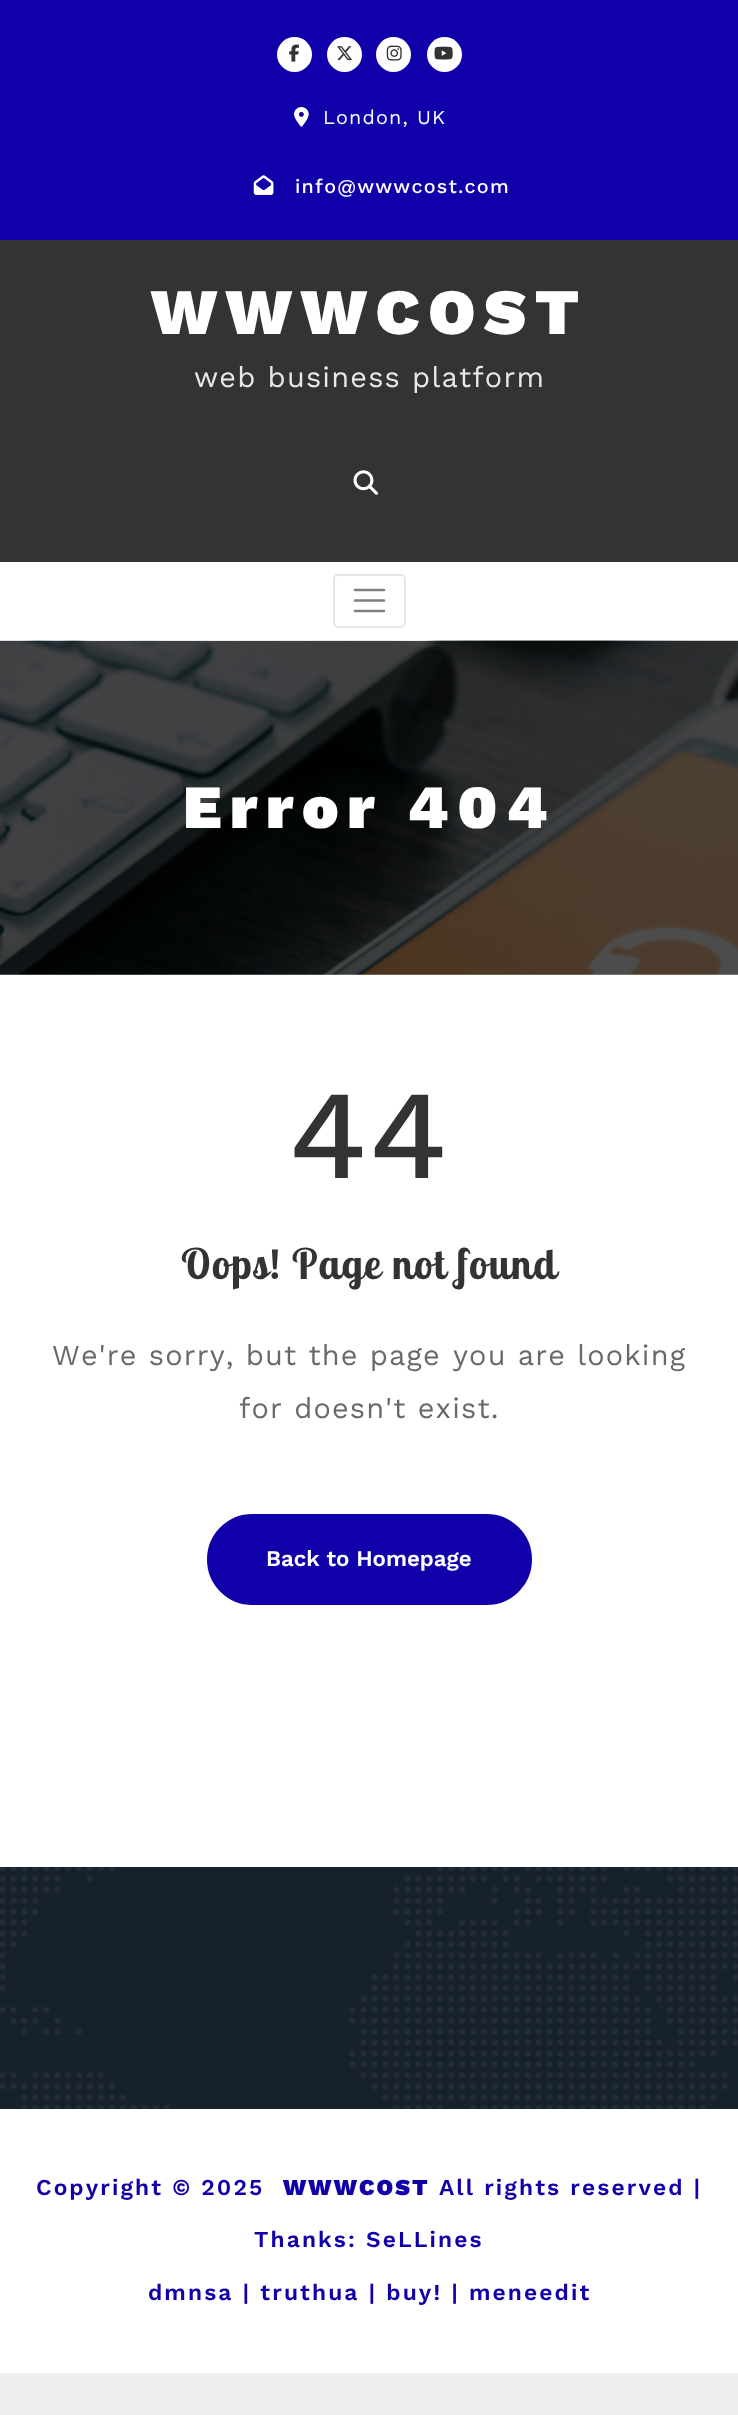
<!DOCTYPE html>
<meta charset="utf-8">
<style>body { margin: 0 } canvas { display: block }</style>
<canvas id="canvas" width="738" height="2415"></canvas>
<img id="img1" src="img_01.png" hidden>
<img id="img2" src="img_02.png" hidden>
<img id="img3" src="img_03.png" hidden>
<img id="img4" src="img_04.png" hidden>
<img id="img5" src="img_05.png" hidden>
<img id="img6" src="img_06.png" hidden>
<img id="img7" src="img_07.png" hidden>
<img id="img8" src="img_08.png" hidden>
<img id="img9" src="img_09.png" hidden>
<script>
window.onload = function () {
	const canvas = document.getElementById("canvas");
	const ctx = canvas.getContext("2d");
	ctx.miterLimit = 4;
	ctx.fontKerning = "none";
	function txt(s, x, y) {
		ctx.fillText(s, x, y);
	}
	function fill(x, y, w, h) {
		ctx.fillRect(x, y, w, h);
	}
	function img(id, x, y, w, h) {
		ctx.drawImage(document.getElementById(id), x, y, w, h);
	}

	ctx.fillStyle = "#EFEFEF";
	fill(0, 0, 738, 2415);
	ctx.fillStyle = "#1100AA";
	fill(0, 0, 738, 240);
	ctx.fillStyle = "#FFFFFF";
	ctx.beginPath();
	ctx.arc(294.5, 54.5, 17.5, 0, Math.PI * 2);
	ctx.fill();
	img("img1", 289, 44, 10, 18);
	ctx.beginPath();
	ctx.arc(344.5, 54.5, 17.5, 0, Math.PI * 2);
	ctx.fill();
	img("img2", 337, 46, 16, 15);
	ctx.beginPath();
	ctx.arc(393.5, 54.5, 17.5, 0, Math.PI * 2);
	ctx.fill();
	img("img3", 386, 45, 16, 16);
	ctx.beginPath();
	ctx.arc(444.5, 54.5, 17.5, 0, Math.PI * 2);
	ctx.fill();
	img("img4", 434, 46, 19, 14);
	img("img5", 294, 107, 15, 20);
	img("img6", 253, 175, 21, 20);
	ctx.fillStyle = "#333333";
	fill(0, 240, 738, 322);
	img("img7", 353, 470, 25, 25);
	ctx.fillStyle = "#FFFFFF";
	fill(0, 562, 738, 79);
	ctx.beginPath();
	ctx.roundRect(334, 575, 71, 52, 4);
	ctx.strokeStyle = "#E6E6E6";
	ctx.lineWidth = 2;
	ctx.stroke();
	ctx.beginPath();
	ctx.moveTo(355, 590);
	ctx.lineTo(384, 590);
	ctx.moveTo(355, 600.5);
	ctx.lineTo(384, 600.5);
	ctx.moveTo(355, 611);
	ctx.lineTo(384, 611);
	ctx.strokeStyle = "#808080";
	ctx.lineWidth = 2.6;
	ctx.lineCap = "round";
	ctx.stroke();
	img("img8", 0, 640, 738, 335);
	fill(0, 975, 738, 1398);
	ctx.fillStyle = "#1100AA";
	ctx.beginPath();
	ctx.roundRect(209, 1516, 321, 87, 43.5);
	ctx.fill();
	ctx.strokeStyle = "#1100AA";
	ctx.lineWidth = 4;
	ctx.stroke();
	ctx.fillStyle = "#17212C";
	fill(0, 1867, 738, 242);
	img("img9", 0, 1867, 738, 242);
	ctx.letterSpacing = "1.2px";
	ctx.font = "19.75px Work Sans";
	ctx.fillStyle = "#FFFFFF";
	txt("London, UK", 323, 124);
	ctx.font = "500 19.75px Work Sans";
	txt("info@wwwcost.com", 295, 193);
	ctx.letterSpacing = "8.75px";
	ctx.font = "900 64.75px Work Sans";
	txt("WWWCOST", 151, 334);
	ctx.letterSpacing = "1.2px";
	ctx.font = "28.9px Work Sans";
	ctx.fillStyle = "#E8E8E8";
	txt("web business platform", 194, 387);
	ctx.letterSpacing = "8.75px";
	ctx.font = "900 61.25px Work Sans";
	ctx.fillStyle = "#FFFFFF";
	txt("Error 404", 183, 828);
	ctx.letterSpacing = "2px";
	ctx.font = "500 126px Work Sans";
	ctx.fillStyle = "#333333";
	txt("44", 289, 1178);
	ctx.letterSpacing = "1.2px";
	ctx.font = "bold 42px Lobster Two";
	txt("Oops! Page not found", 181, 1279);
	ctx.font = "28.9px Work Sans";
	ctx.fillStyle = "#696969";
	txt("We're sorry, but the page", 52, 1365);
	txt("you are looking", 453, 1365);
	txt("for doesn't exist.", 239, 1418);
	ctx.letterSpacing = "0px";
	ctx.font = "600 22.25px Work Sans";
	ctx.fillStyle = "#FFFFFF";
	txt("Back to Homepage", 266, 1566);
	ctx.letterSpacing = "2.1px";
	ctx.font = "600 22.75px Work Sans";
	ctx.fillStyle = "#1100AA";
	txt("Copyright © 2025", 36, 2195);
	ctx.font = "900 22.75px Work Sans";
	txt("WWWCOST", 283, 2195);
	ctx.font = "600 22.75px Work Sans";
	txt("All rights reserved |", 439, 2195);
	txt("Thanks: SeLLines", 254, 2247);
	txt("dmnsa | truthua | buy! | meneedit", 148, 2300);
};
</script>
